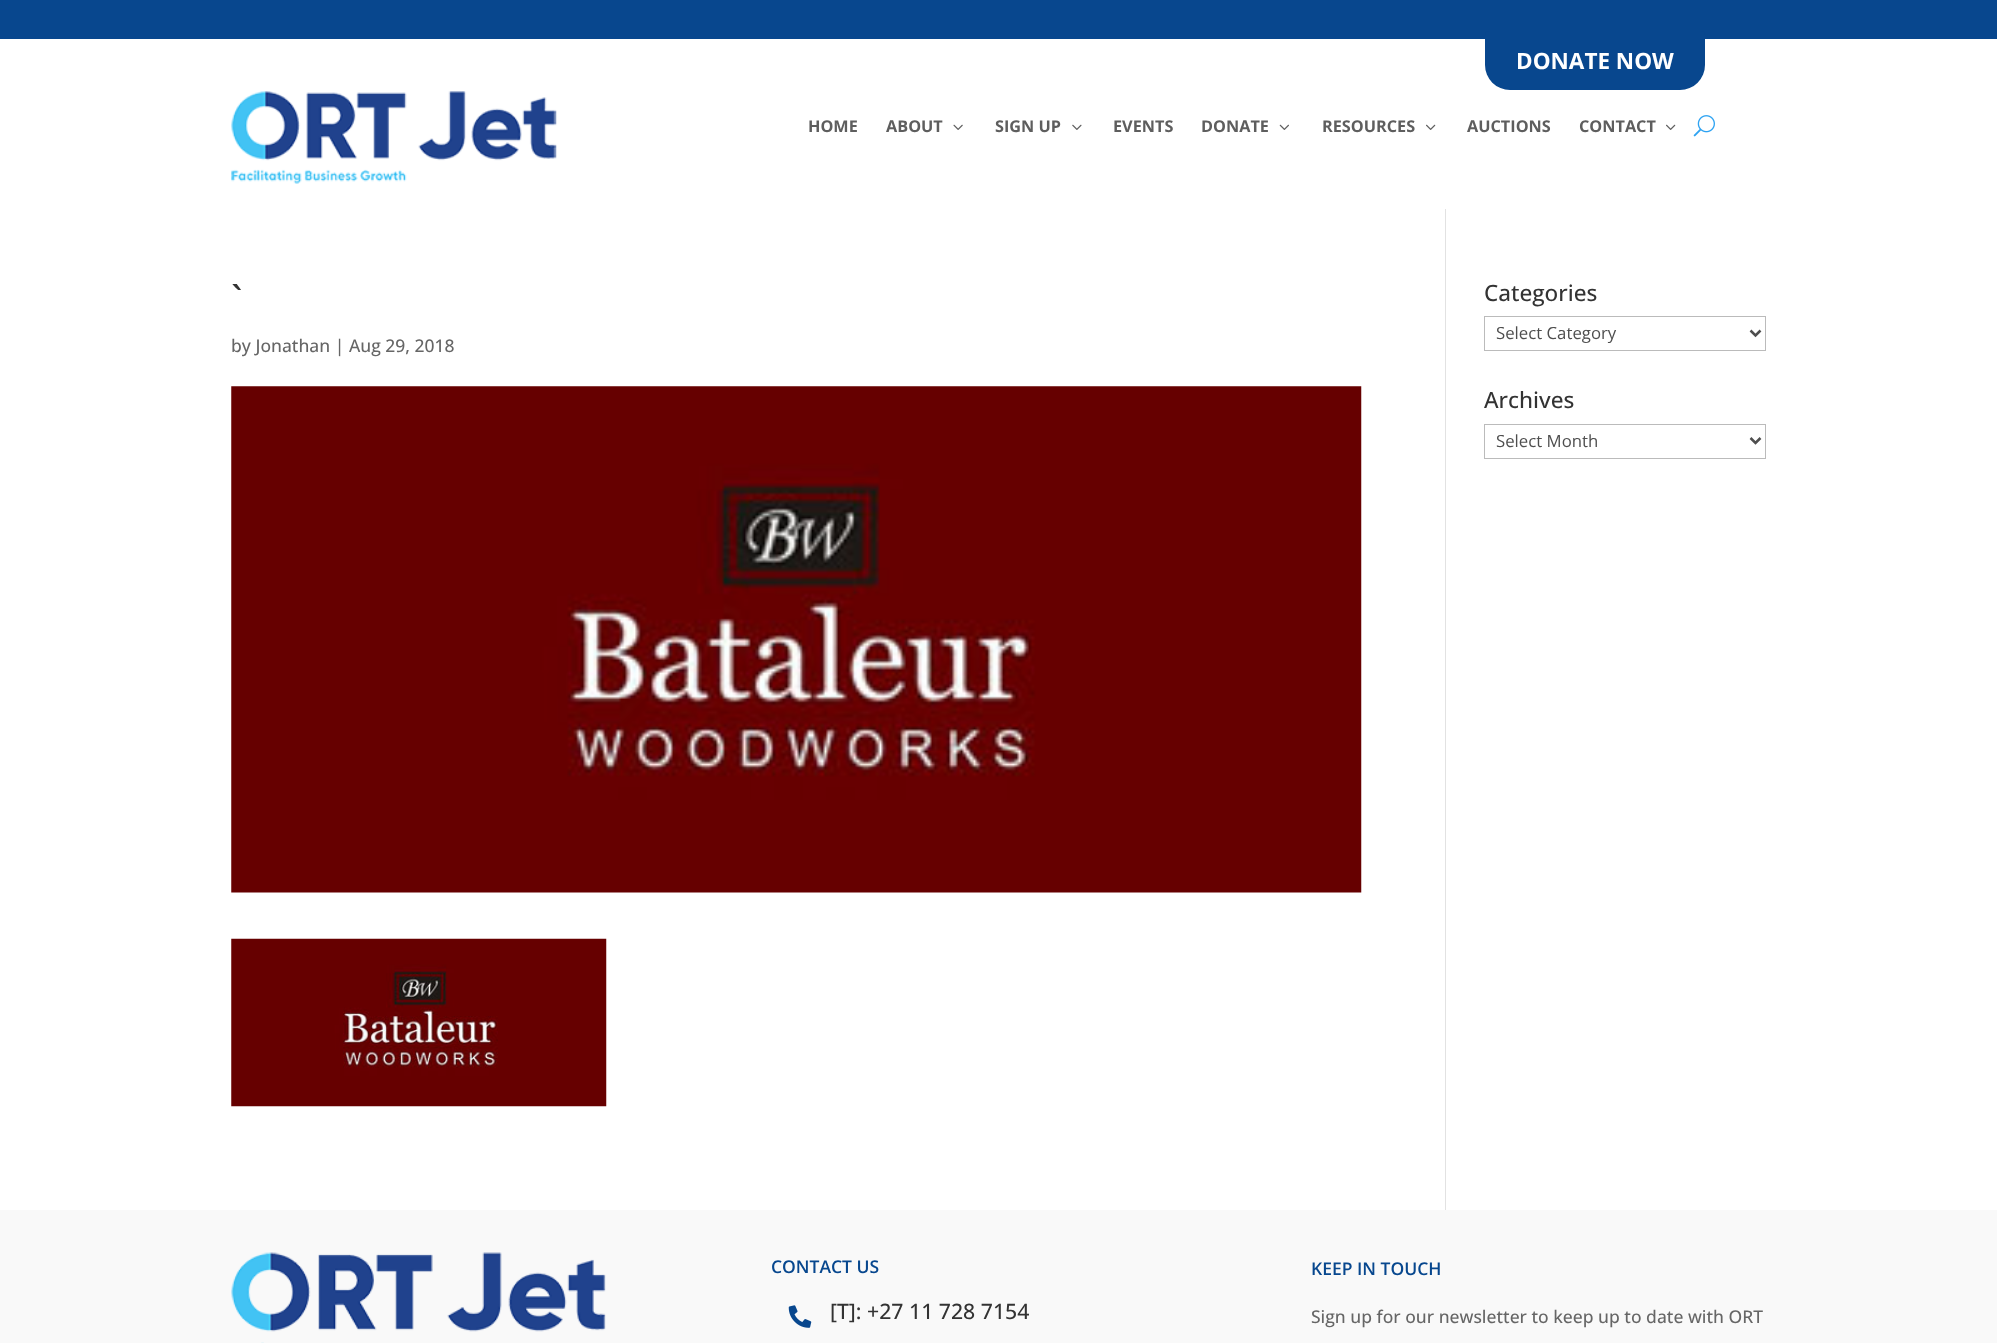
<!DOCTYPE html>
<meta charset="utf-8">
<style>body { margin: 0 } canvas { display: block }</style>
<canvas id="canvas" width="1997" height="1343"></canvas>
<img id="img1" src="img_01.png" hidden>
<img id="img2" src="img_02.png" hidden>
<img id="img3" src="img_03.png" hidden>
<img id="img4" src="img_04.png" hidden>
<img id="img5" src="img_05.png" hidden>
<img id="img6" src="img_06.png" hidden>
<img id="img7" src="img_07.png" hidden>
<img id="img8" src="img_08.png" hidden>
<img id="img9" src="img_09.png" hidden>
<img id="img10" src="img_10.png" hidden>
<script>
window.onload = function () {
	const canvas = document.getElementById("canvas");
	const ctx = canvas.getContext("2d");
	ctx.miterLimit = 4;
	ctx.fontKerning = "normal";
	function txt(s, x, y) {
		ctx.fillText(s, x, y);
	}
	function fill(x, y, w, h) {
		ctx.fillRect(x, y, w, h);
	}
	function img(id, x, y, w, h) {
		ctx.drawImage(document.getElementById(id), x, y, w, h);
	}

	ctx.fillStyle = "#FFFFFF";
	fill(0, 0, 1997, 1343);
	ctx.fillStyle = "#08478E";
	fill(0, 0, 1997, 39);
	ctx.beginPath();
	ctx.roundRect(1485, 31, 220, 59, [4, 4, 25, 25]);
	ctx.fill();
	img("img1", 231, 91, 326, 93);
	img("img2", 953, 124, 10, 6);
	img("img3", 1072, 124, 10, 6);
	img("img4", 1279, 124, 10, 6);
	img("img5", 1426, 124, 10, 6);
	img("img5", 1666, 124, 10, 6);
	img("img6", 1693, 115, 22, 22);
	ctx.fillStyle = "#E2E2E2";
	fill(1445, 209, 1, 1001);
	img("img7", 231, 386, 1131, 507);
	img("img8", 231, 938, 376, 169);
	ctx.strokeStyle = "#BBBBBB";
	ctx.strokeRect(1484.5, 316.5, 281, 34);
	ctx.beginPath();
	ctx.moveTo(1750.5, 330.5);
	ctx.lineTo(1755.5, 335.5);
	ctx.lineTo(1760.5, 330.5);
	ctx.strokeStyle = "#4E4E4E";
	ctx.lineWidth = 2.5;
	ctx.stroke();
	ctx.strokeStyle = "#BBBBBB";
	ctx.lineWidth = 1;
	ctx.strokeRect(1484.5, 424.5, 281, 34);
	ctx.beginPath();
	ctx.moveTo(1750.5, 438);
	ctx.lineTo(1755.5, 443);
	ctx.lineTo(1760.5, 438);
	ctx.strokeStyle = "#4E4E4E";
	ctx.lineWidth = 2.5;
	ctx.stroke();
	ctx.fillStyle = "#F9F9F9";
	fill(0, 1210, 1997, 133);
	img("img9", 231, 1252, 375, 91);
	img("img10", 788, 1305, 24, 23);
	ctx.font = "bold 22.5px Open Sans";
	ctx.fillStyle = "#FFFFFF";
	txt("DONATE NOW", 1516, 69);
	ctx.font = "bold 16.25px Open Sans";
	ctx.fillStyle = "#5E5E5E";
	txt("HOME", 808, 132);
	txt("ABOUT", 886, 132);
	txt("SIGN UP", 995, 132);
	txt("EVENTS", 1113, 132);
	txt("DONATE", 1201, 132);
	txt("RESOURCES", 1322, 132);
	txt("AUCTIONS", 1467, 132);
	txt("CONTACT", 1579, 132);
	ctx.font = "500 38px Open Sans";
	ctx.fillStyle = "#333333";
	txt("`", 231, 313);
	ctx.font = "500 17.5px Open Sans";
	ctx.fillStyle = "#666666";
	txt("by Jonathan | Aug 29, 2018", 231, 352);
	ctx.font = "500 22.5px Open Sans";
	ctx.fillStyle = "#333333";
	txt("Categories", 1484, 301);
	ctx.font = "16.75px Open Sans";
	ctx.fillStyle = "#4E4E4E";
	txt("Select Category", 1496, 339);
	ctx.font = "500 22.5px Open Sans";
	ctx.fillStyle = "#333333";
	txt("Archives", 1484, 408);
	ctx.font = "16.75px Open Sans";
	ctx.fillStyle = "#4E4E4E";
	txt("Select Month", 1496, 447);
	ctx.font = "600 17.5px Open Sans";
	ctx.fillStyle = "#07478E";
	txt("CONTACT US", 771, 1273);
	ctx.font = "500 21.25px Open Sans";
	ctx.fillStyle = "#333333";
	txt("[T]: +27 11 728 7154", 830, 1319);
	ctx.font = "600 17.5px Open Sans";
	ctx.fillStyle = "#07478E";
	txt("KEEP IN TOUCH", 1311, 1275);
	ctx.font = "500 17.5px Open Sans";
	ctx.fillStyle = "#666666";
	txt("Sign up for our newsletter to keep up to date with ORT", 1311, 1323);
};
</script>
